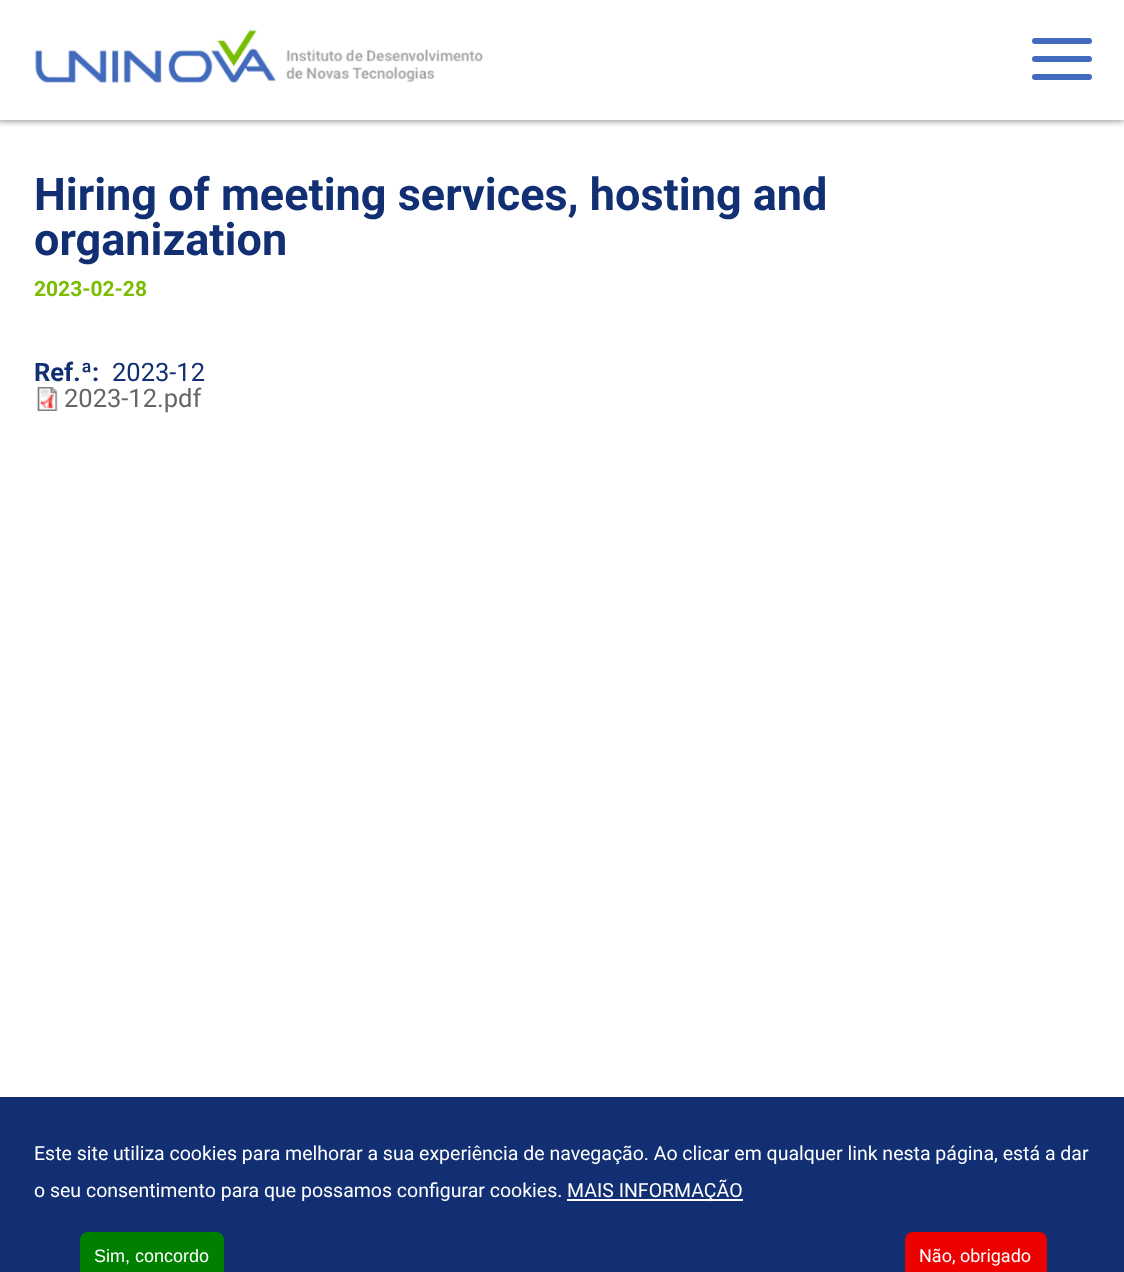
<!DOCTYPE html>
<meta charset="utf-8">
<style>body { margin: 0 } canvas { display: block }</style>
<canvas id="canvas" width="1124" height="1272"></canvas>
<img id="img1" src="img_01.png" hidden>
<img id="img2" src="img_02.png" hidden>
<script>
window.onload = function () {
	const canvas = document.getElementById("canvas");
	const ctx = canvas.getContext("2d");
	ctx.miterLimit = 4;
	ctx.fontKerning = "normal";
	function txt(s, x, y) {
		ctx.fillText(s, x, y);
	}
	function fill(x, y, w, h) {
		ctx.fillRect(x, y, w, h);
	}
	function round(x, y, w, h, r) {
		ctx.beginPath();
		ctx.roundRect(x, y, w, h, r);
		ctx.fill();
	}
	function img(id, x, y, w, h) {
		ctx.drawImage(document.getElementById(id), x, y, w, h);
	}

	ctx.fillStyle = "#FFFFFF";
	fill(0, 0, 1124, 1272);
	ctx.save();
	ctx.beginPath();
	ctx.rect(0, 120, 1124, 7);
	ctx.clip();
	ctx.fillStyle = "#4D4F4F";
	ctx.filter = "blur(4px)";
	ctx.beginPath();
	ctx.rect(-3, -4, 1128, 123);
	ctx.fill();
	ctx.filter = "none";
	ctx.restore();
	img("img1", 34, 29, 449, 54);
	ctx.fillStyle = "#426BBD";
	ctx.beginPath();
	ctx.roundRect(1032, 38, 30, 6, [3, 0, 0, 3]);
	ctx.fill();
	ctx.beginPath();
	ctx.roundRect(1062, 38, 30, 6, [0, 3, 3, 0]);
	ctx.fill();
	ctx.beginPath();
	ctx.roundRect(1032, 56, 30, 6, [3, 0, 0, 3]);
	ctx.fill();
	ctx.beginPath();
	ctx.roundRect(1062, 56, 30, 6, [0, 3, 3, 0]);
	ctx.fill();
	ctx.beginPath();
	ctx.roundRect(1032, 74, 30, 6, [3, 0, 0, 3]);
	ctx.fill();
	ctx.beginPath();
	ctx.roundRect(1062, 74, 30, 6, [0, 3, 3, 0]);
	ctx.fill();
	img("img2", 37, 387, 21, 24);
	ctx.fillStyle = "#112F72";
	fill(0, 1097, 1124, 175);
	ctx.fillStyle = "#FFFFFF";
	fill(567, 1199, 176, 2);
	ctx.fillStyle = "#008000";
	round(80, 1232, 144, 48, 8);
	ctx.fillStyle = "#EE0000";
	round(905, 1232, 142, 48, 8);
	ctx.font = "bold 45px Roboto";
	ctx.fillStyle = "#112F72";
	txt("Hiring of meeting services, hosting and", 34, 210);
	txt("organization", 34, 255);
	ctx.font = "bold 21px Roboto";
	ctx.fillStyle = "#7BBD03";
	txt("2023-02-28", 34, 296);
	ctx.font = "bold 25.5px Roboto";
	ctx.fillStyle = "#112F72";
	txt("Ref.ª:", 34, 381);
	ctx.font = "25.5px Roboto";
	txt("2023-12", 112, 381);
	ctx.fillStyle = "#666666";
	txt("2023-12.pdf", 64, 407);
	ctx.font = "19.5px Roboto";
	ctx.fillStyle = "#FFFFFF";
	txt("Este site utiliza cookies para melhorar a sua experiência de navegação. Ao clicar em qualquer link nesta página, está a dar", 34, 1160);
	txt("o seu consentimento para que possamos configurar cookies.", 34, 1197);
	txt("MAIS INFORMAÇÃO", 567, 1197);
	ctx.font = "18px Liberation Sans";
	txt("Sim, concordo", 94, 1262);
	ctx.font = "18px Roboto";
	txt("Não, obrigado", 919, 1262);
};
</script>
